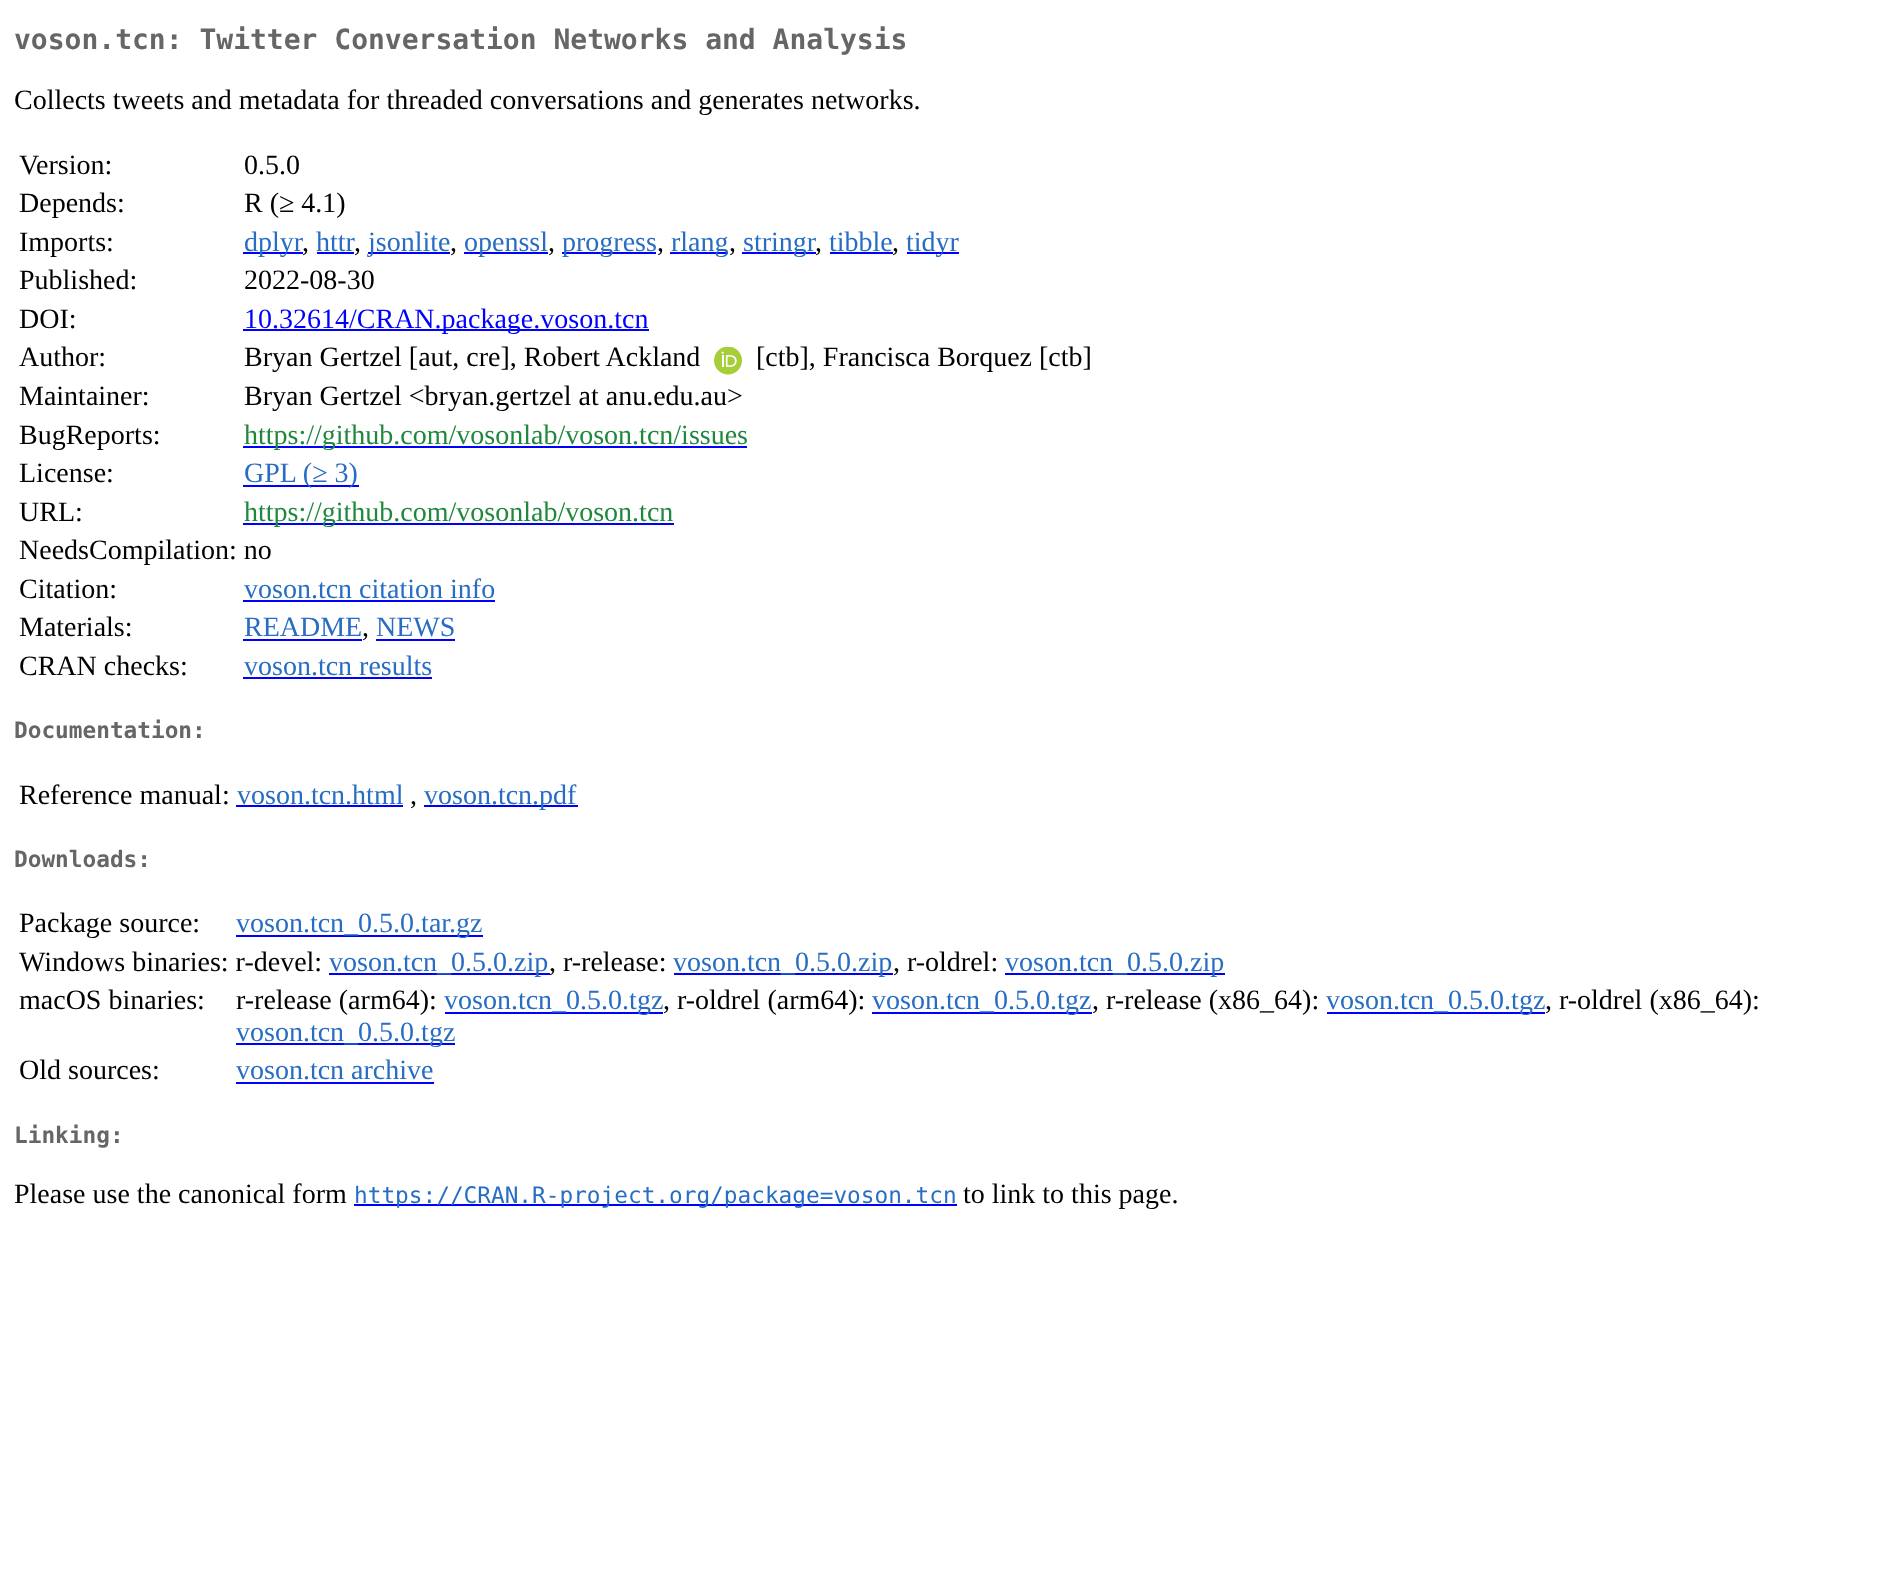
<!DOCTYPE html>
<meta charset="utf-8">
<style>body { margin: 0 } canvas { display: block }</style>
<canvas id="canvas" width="1880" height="1571"></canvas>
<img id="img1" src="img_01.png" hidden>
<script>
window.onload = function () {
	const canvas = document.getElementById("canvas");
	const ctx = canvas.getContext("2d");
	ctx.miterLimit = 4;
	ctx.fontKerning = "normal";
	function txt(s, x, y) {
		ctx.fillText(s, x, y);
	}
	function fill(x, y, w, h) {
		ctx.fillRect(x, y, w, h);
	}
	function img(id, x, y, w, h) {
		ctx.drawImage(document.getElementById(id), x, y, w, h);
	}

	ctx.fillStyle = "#FFFFFF";
	fill(0, 0, 1880, 1571);
	ctx.fillStyle = "#0000FF";
	fill(243, 252, 60, 2);
	fill(317, 252, 37, 2);
	fill(368, 252, 82, 2);
	fill(464, 252, 84, 2);
	fill(562, 252, 94, 2);
	fill(670, 252, 58, 2);
	fill(742, 252, 74, 2);
	fill(830, 252, 63, 2);
	fill(907, 252, 52, 2);
	fill(243, 329, 406, 2);
	img("img1", 714, 347, 28, 28);
	fill(243, 446, 504, 2);
	fill(243, 485, 116, 2);
	fill(243, 523, 431, 2);
	fill(243, 600, 252, 2);
	fill(243, 639, 119, 2);
	fill(376, 639, 79, 2);
	fill(243, 677, 189, 2);
	fill(236, 805, 167, 2);
	fill(424, 805, 154, 2);
	fill(236, 935, 247, 2);
	fill(329, 973, 221, 2);
	fill(674, 973, 219, 2);
	fill(1005, 973, 220, 2);
	fill(445, 1012, 218, 2);
	fill(872, 1012, 220, 2);
	fill(1327, 1012, 218, 2);
	fill(236, 1043, 219, 2);
	fill(236, 1082, 198, 2);
	fill(354, 1204, 603, 2);
	ctx.font = "bold 28px DejaVu Sans Mono";
	ctx.fillStyle = "#666666";
	txt("voson.tcn: Twitter Conversation Networks and Analysis", 14, 49);
	ctx.font = "28px Liberation Serif";
	ctx.fillStyle = "#000000";
	txt("Collects tweets and metadata for threaded conversations and generates networks.", 14, 109);
	txt("Version:", 19, 174);
	txt("0.5.0", 244, 174);
	txt("Depends:", 19, 212);
	txt("R (≥ 4.1)", 244, 212);
	txt("Imports:", 19, 251);
	ctx.fillStyle = "#276DC3";
	txt("dplyr", 244, 251);
	ctx.fillStyle = "#000000";
	txt(",", 302, 251);
	ctx.fillStyle = "#276DC3";
	txt("httr", 316, 251);
	ctx.fillStyle = "#000000";
	txt(",", 354, 251);
	ctx.fillStyle = "#276DC3";
	txt("jsonlite", 368, 251);
	ctx.fillStyle = "#000000";
	txt(",", 450, 251);
	ctx.fillStyle = "#276DC3";
	txt("openssl", 464, 251);
	ctx.fillStyle = "#000000";
	txt(",", 548, 251);
	ctx.fillStyle = "#276DC3";
	txt("progress", 562, 251);
	ctx.fillStyle = "#000000";
	txt(",", 657, 251);
	ctx.fillStyle = "#276DC3";
	txt("rlang", 671, 251);
	ctx.fillStyle = "#000000";
	txt(",", 729, 251);
	ctx.fillStyle = "#276DC3";
	txt("stringr", 743, 251);
	ctx.fillStyle = "#000000";
	txt(",", 815, 251);
	ctx.fillStyle = "#276DC3";
	txt("tibble", 829, 251);
	ctx.fillStyle = "#000000";
	txt(",", 892, 251);
	ctx.fillStyle = "#276DC3";
	txt("tidyr", 906, 251);
	ctx.fillStyle = "#000000";
	txt("Published:", 19, 289);
	txt("2022-08-30", 244, 289);
	txt("DOI:", 19, 328);
	ctx.fillStyle = "#0000FF";
	txt("10.32614/CRAN.package.voson.tcn", 244, 328);
	ctx.fillStyle = "#000000";
	txt("Author:", 19, 366);
	txt("Bryan Gertzel [aut, cre], Robert Ackland", 244, 366);
	txt("[ctb], Francisca Borquez [ctb]", 756, 366);
	txt("Maintainer:", 19, 405);
	txt("Bryan Gertzel <bryan.gertzel at anu.edu.au>", 244, 405);
	txt("BugReports:", 19, 444);
	ctx.fillStyle = "#1F883D";
	txt("https://github.com/vosonlab/voson.tcn/issues", 244, 444);
	ctx.fillStyle = "#000000";
	txt("License:", 19, 482);
	ctx.fillStyle = "#276DC3";
	txt("GPL (≥ 3)", 244, 482);
	ctx.fillStyle = "#000000";
	txt("URL:", 19, 521);
	ctx.fillStyle = "#1F883D";
	txt("https://github.com/vosonlab/voson.tcn", 244, 521);
	ctx.fillStyle = "#000000";
	txt("NeedsCompilation: no", 19, 559);
	txt("Citation:", 19, 598);
	ctx.fillStyle = "#276DC3";
	txt("voson.tcn citation info", 244, 598);
	ctx.fillStyle = "#000000";
	txt("Materials:", 19, 636);
	ctx.fillStyle = "#276DC3";
	txt("README", 244, 636);
	ctx.fillStyle = "#000000";
	txt(",", 362, 636);
	ctx.fillStyle = "#276DC3";
	txt("NEWS", 376, 636);
	ctx.fillStyle = "#000000";
	txt("CRAN checks:", 19, 675);
	ctx.fillStyle = "#276DC3";
	txt("voson.tcn results", 244, 675);
	ctx.font = "bold 22.75px DejaVu Sans Mono";
	ctx.fillStyle = "#666666";
	txt("Documentation:", 14, 738);
	ctx.font = "28px Liberation Serif";
	ctx.fillStyle = "#000000";
	txt("Reference manual:", 19, 804);
	ctx.fillStyle = "#276DC3";
	txt("voson.tcn.html", 237, 804);
	ctx.fillStyle = "#000000";
	txt(",", 410, 804);
	ctx.fillStyle = "#276DC3";
	txt("voson.tcn.pdf", 424, 804);
	ctx.font = "bold 22.75px DejaVu Sans Mono";
	ctx.fillStyle = "#666666";
	txt("Downloads:", 14, 867);
	ctx.font = "28px Liberation Serif";
	ctx.fillStyle = "#000000";
	txt("Package source:", 19, 932);
	ctx.fillStyle = "#276DC3";
	txt("voson.tcn_0.5.0.tar.gz", 236, 932);
	ctx.fillStyle = "#000000";
	txt("Windows binaries: r-devel:", 19, 971);
	ctx.fillStyle = "#276DC3";
	txt("voson.tcn_0.5.0.zip", 329, 971);
	ctx.fillStyle = "#000000";
	txt(", r-release:", 549, 971);
	ctx.fillStyle = "#276DC3";
	txt("voson.tcn_0.5.0.zip", 673, 971);
	ctx.fillStyle = "#000000";
	txt(", r-oldrel:", 893, 971);
	ctx.fillStyle = "#276DC3";
	txt("voson.tcn_0.5.0.zip", 1005, 971);
	ctx.fillStyle = "#000000";
	txt("macOS binaries:", 19, 1009);
	txt("r-release (arm64):", 236, 1009);
	ctx.fillStyle = "#276DC3";
	txt("voson.tcn_0.5.0.tgz", 444, 1009);
	ctx.fillStyle = "#000000";
	txt(", r-oldrel (arm64):", 663, 1009);
	ctx.fillStyle = "#276DC3";
	txt("voson.tcn_0.5.0.tgz", 872, 1009);
	ctx.fillStyle = "#000000";
	txt(", r-release (x86_64):", 1092, 1009);
	ctx.fillStyle = "#276DC3";
	txt("voson.tcn_0.5.0.tgz", 1326, 1009);
	ctx.fillStyle = "#000000";
	txt(", r-oldrel (x86_64):", 1545, 1009);
	ctx.fillStyle = "#276DC3";
	txt("voson.tcn_0.5.0.tgz", 236, 1041);
	ctx.fillStyle = "#000000";
	txt("Old sources:", 19, 1079);
	ctx.fillStyle = "#276DC3";
	txt("voson.tcn archive", 236, 1079);
	ctx.font = "bold 22.75px DejaVu Sans Mono";
	ctx.fillStyle = "#666666";
	txt("Linking:", 14, 1143);
	ctx.font = "28px Liberation Serif";
	ctx.fillStyle = "#000000";
	txt("Please use the canonical form", 14, 1203);
	ctx.font = "22.75px DejaVu Sans Mono";
	ctx.fillStyle = "#276DC3";
	txt("https://CRAN.R-project.org/package=voson.tcn", 354, 1203);
	ctx.font = "28px Liberation Serif";
	ctx.fillStyle = "#000000";
	txt("to link to this page.", 963, 1203);
};
</script>
